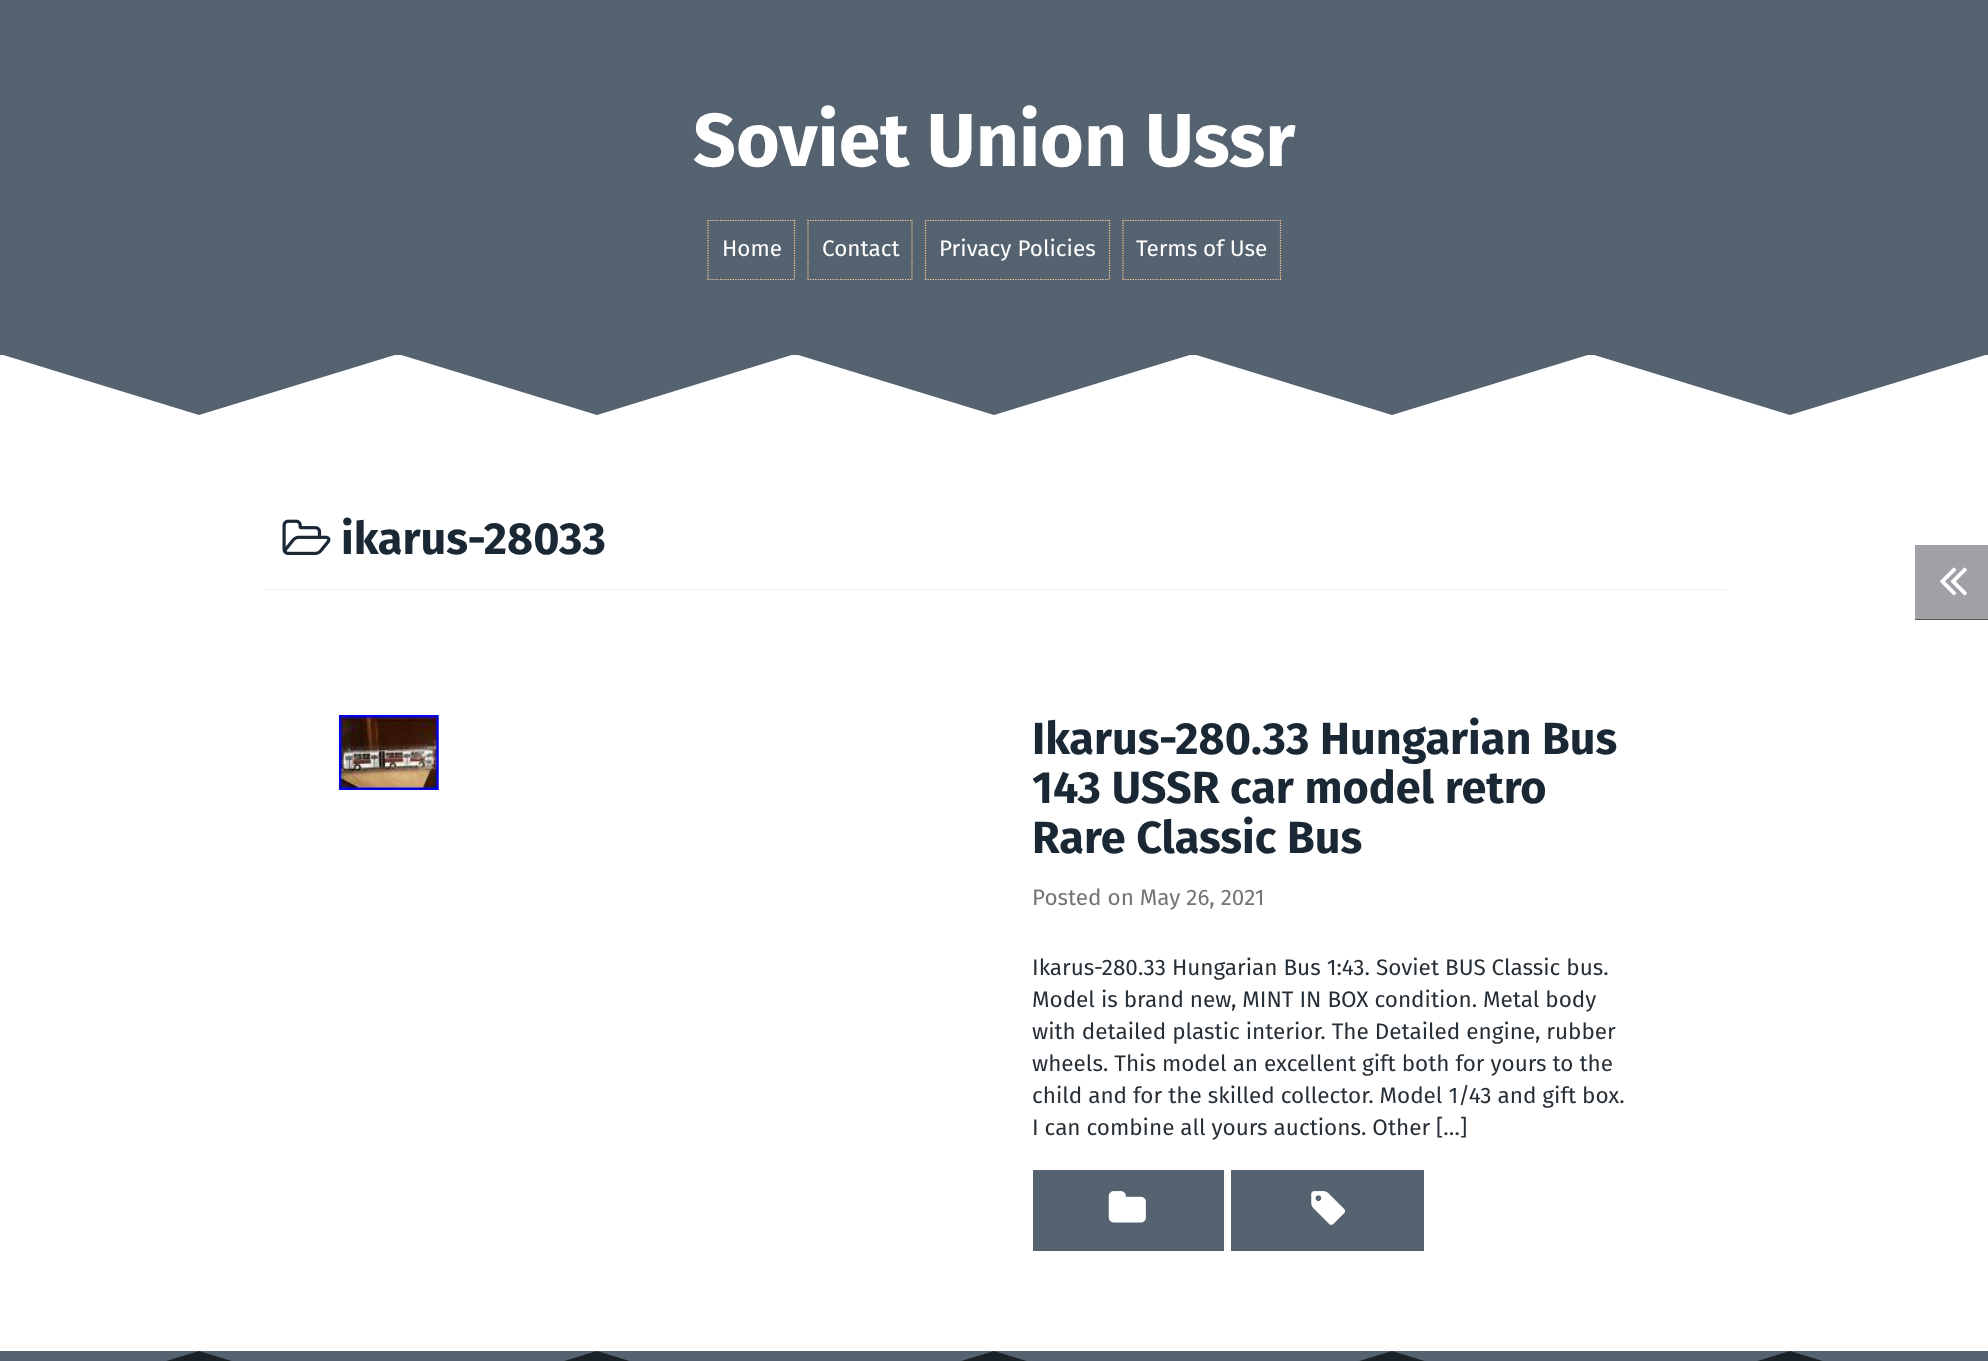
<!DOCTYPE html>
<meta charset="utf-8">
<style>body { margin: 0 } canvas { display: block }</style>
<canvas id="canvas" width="1988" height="1361"></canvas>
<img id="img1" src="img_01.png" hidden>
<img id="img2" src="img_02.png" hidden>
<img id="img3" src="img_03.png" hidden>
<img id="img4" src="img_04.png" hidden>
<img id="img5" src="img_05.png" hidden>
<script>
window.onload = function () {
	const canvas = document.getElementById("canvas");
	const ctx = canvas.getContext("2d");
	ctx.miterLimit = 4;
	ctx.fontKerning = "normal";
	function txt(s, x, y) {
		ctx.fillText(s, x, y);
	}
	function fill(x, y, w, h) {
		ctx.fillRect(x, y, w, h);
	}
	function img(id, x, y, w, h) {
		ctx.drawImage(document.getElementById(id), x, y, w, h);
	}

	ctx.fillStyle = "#FFFFFF";
	fill(0, 0, 1988, 1361);
	ctx.fillStyle = "#556270";
	fill(0, 0, 1988, 355);
	ctx.beginPath();
	ctx.moveTo(707.5, 220.5);
	ctx.lineTo(795, 220.5);
	ctx.strokeStyle = "#FFCC99";
	ctx.lineWidth = 1.2;
	ctx.setLineDash([1.25, 1.25]);
	ctx.stroke();
	ctx.beginPath();
	ctx.moveTo(794.5, 220);
	ctx.lineTo(794.5, 280);
	ctx.stroke();
	ctx.beginPath();
	ctx.moveTo(707.5, 279.5);
	ctx.lineTo(795, 279.5);
	ctx.stroke();
	ctx.beginPath();
	ctx.moveTo(708, 220);
	ctx.lineTo(708, 280);
	ctx.stroke();
	ctx.beginPath();
	ctx.moveTo(807.5, 220.5);
	ctx.lineTo(912.5, 220.5);
	ctx.stroke();
	ctx.beginPath();
	ctx.moveTo(912, 220);
	ctx.lineTo(912, 280);
	ctx.stroke();
	ctx.beginPath();
	ctx.moveTo(807.5, 279.5);
	ctx.lineTo(912.5, 279.5);
	ctx.stroke();
	ctx.beginPath();
	ctx.moveTo(808, 220);
	ctx.lineTo(808, 280);
	ctx.stroke();
	ctx.beginPath();
	ctx.moveTo(925, 220.5);
	ctx.lineTo(1110, 220.5);
	ctx.stroke();
	ctx.beginPath();
	ctx.moveTo(1109.5, 220);
	ctx.lineTo(1109.5, 280);
	ctx.stroke();
	ctx.beginPath();
	ctx.moveTo(925, 279.5);
	ctx.lineTo(1110, 279.5);
	ctx.stroke();
	ctx.beginPath();
	ctx.moveTo(925.5, 220);
	ctx.lineTo(925.5, 280);
	ctx.stroke();
	ctx.beginPath();
	ctx.moveTo(1122.5, 220.5);
	ctx.lineTo(1281, 220.5);
	ctx.stroke();
	ctx.beginPath();
	ctx.moveTo(1280.5, 220);
	ctx.lineTo(1280.5, 280);
	ctx.stroke();
	ctx.beginPath();
	ctx.moveTo(1122.5, 279.5);
	ctx.lineTo(1281, 279.5);
	ctx.stroke();
	ctx.beginPath();
	ctx.moveTo(1123, 220);
	ctx.lineTo(1123, 280);
	ctx.stroke();
	ctx.beginPath();
	ctx.moveTo(0, 354);
	ctx.lineTo(199, 415);
	ctx.lineTo(398, 354);
	ctx.fill();
	ctx.beginPath();
	ctx.moveTo(398, 354);
	ctx.lineTo(597, 415);
	ctx.lineTo(795, 354);
	ctx.fill();
	ctx.beginPath();
	ctx.moveTo(795, 354);
	ctx.lineTo(994, 415);
	ctx.lineTo(1193, 354);
	ctx.fill();
	ctx.beginPath();
	ctx.moveTo(1193, 354);
	ctx.lineTo(1392, 415);
	ctx.lineTo(1591, 354);
	ctx.fill();
	ctx.beginPath();
	ctx.moveTo(1591, 354);
	ctx.lineTo(1790, 415);
	ctx.lineTo(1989, 354);
	ctx.fill();
	ctx.fillStyle = "#EEEEEE";
	fill(264, 589, 1462, 1);
	img("img1", 282, 519, 49, 36);
	img("img2", 338, 715, 101, 75);
	ctx.fillStyle = "#556270";
	fill(1033, 1170, 191, 81);
	img("img3", 1108, 1191, 38, 32);
	fill(1231, 1170, 193, 81);
	img("img4", 1311, 1191, 34, 34);
	ctx.fillStyle = "#9FA1A6";
	fill(1915, 545, 73, 74);
	ctx.fillStyle = "#575757";
	fill(1915, 619, 73, 1);
	img("img5", 1940, 567, 27, 29);
	ctx.fillStyle = "#556270";
	fill(0, 1351, 1988, 10);
	ctx.fillStyle = "#1A2227";
	ctx.beginPath();
	ctx.moveTo(0, 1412);
	ctx.lineTo(199, 1351);
	ctx.lineTo(398, 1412);
	ctx.fill();
	ctx.beginPath();
	ctx.moveTo(398, 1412);
	ctx.lineTo(597, 1351);
	ctx.lineTo(795, 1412);
	ctx.fill();
	ctx.beginPath();
	ctx.moveTo(795, 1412);
	ctx.lineTo(994, 1351);
	ctx.lineTo(1193, 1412);
	ctx.fill();
	ctx.beginPath();
	ctx.moveTo(1193, 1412);
	ctx.lineTo(1392, 1351);
	ctx.lineTo(1591, 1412);
	ctx.fill();
	ctx.beginPath();
	ctx.moveTo(1591, 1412);
	ctx.lineTo(1790, 1351);
	ctx.lineTo(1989, 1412);
	ctx.fill();
	ctx.font = "bold 75px Fira Sans";
	ctx.fillStyle = "#FFFFFF";
	txt("Soviet Union Ussr", 693, 166);
	ctx.font = "22.5px Fira Sans";
	txt("Home", 722, 256);
	txt("Contact", 822, 256);
	txt("Privacy Policies", 939, 256);
	txt("Terms of Use", 1136, 256);
	ctx.font = "bold 45px Fira Sans";
	ctx.fillStyle = "#1A2835";
	txt("ikarus-28033", 341, 554);
	txt("Ikarus-280.33 Hungarian Bus", 1032, 754);
	txt("143 USSR car model retro", 1032, 803);
	txt("Rare Classic Bus", 1032, 853);
	ctx.font = "22.5px Fira Sans";
	ctx.fillStyle = "#727475";
	txt("Posted on May 26, 2021", 1032, 905);
	ctx.fillStyle = "#272F36";
	txt("Ikarus-280.33 Hungarian Bus 1:43. Soviet BUS Classic bus.", 1032, 975);
	txt("Model is brand new, MINT IN BOX condition. Metal body", 1032, 1007);
	txt("with detailed plastic interior. The Detailed engine, rubber", 1032, 1039);
	txt("wheels. This model an excellent gift both for yours to the", 1032, 1071);
	txt("child and for the skilled collector. Model 1/43 and gift box.", 1032, 1103);
	txt("I can combine all yours auctions. Other […]", 1032, 1135);
};
</script>
